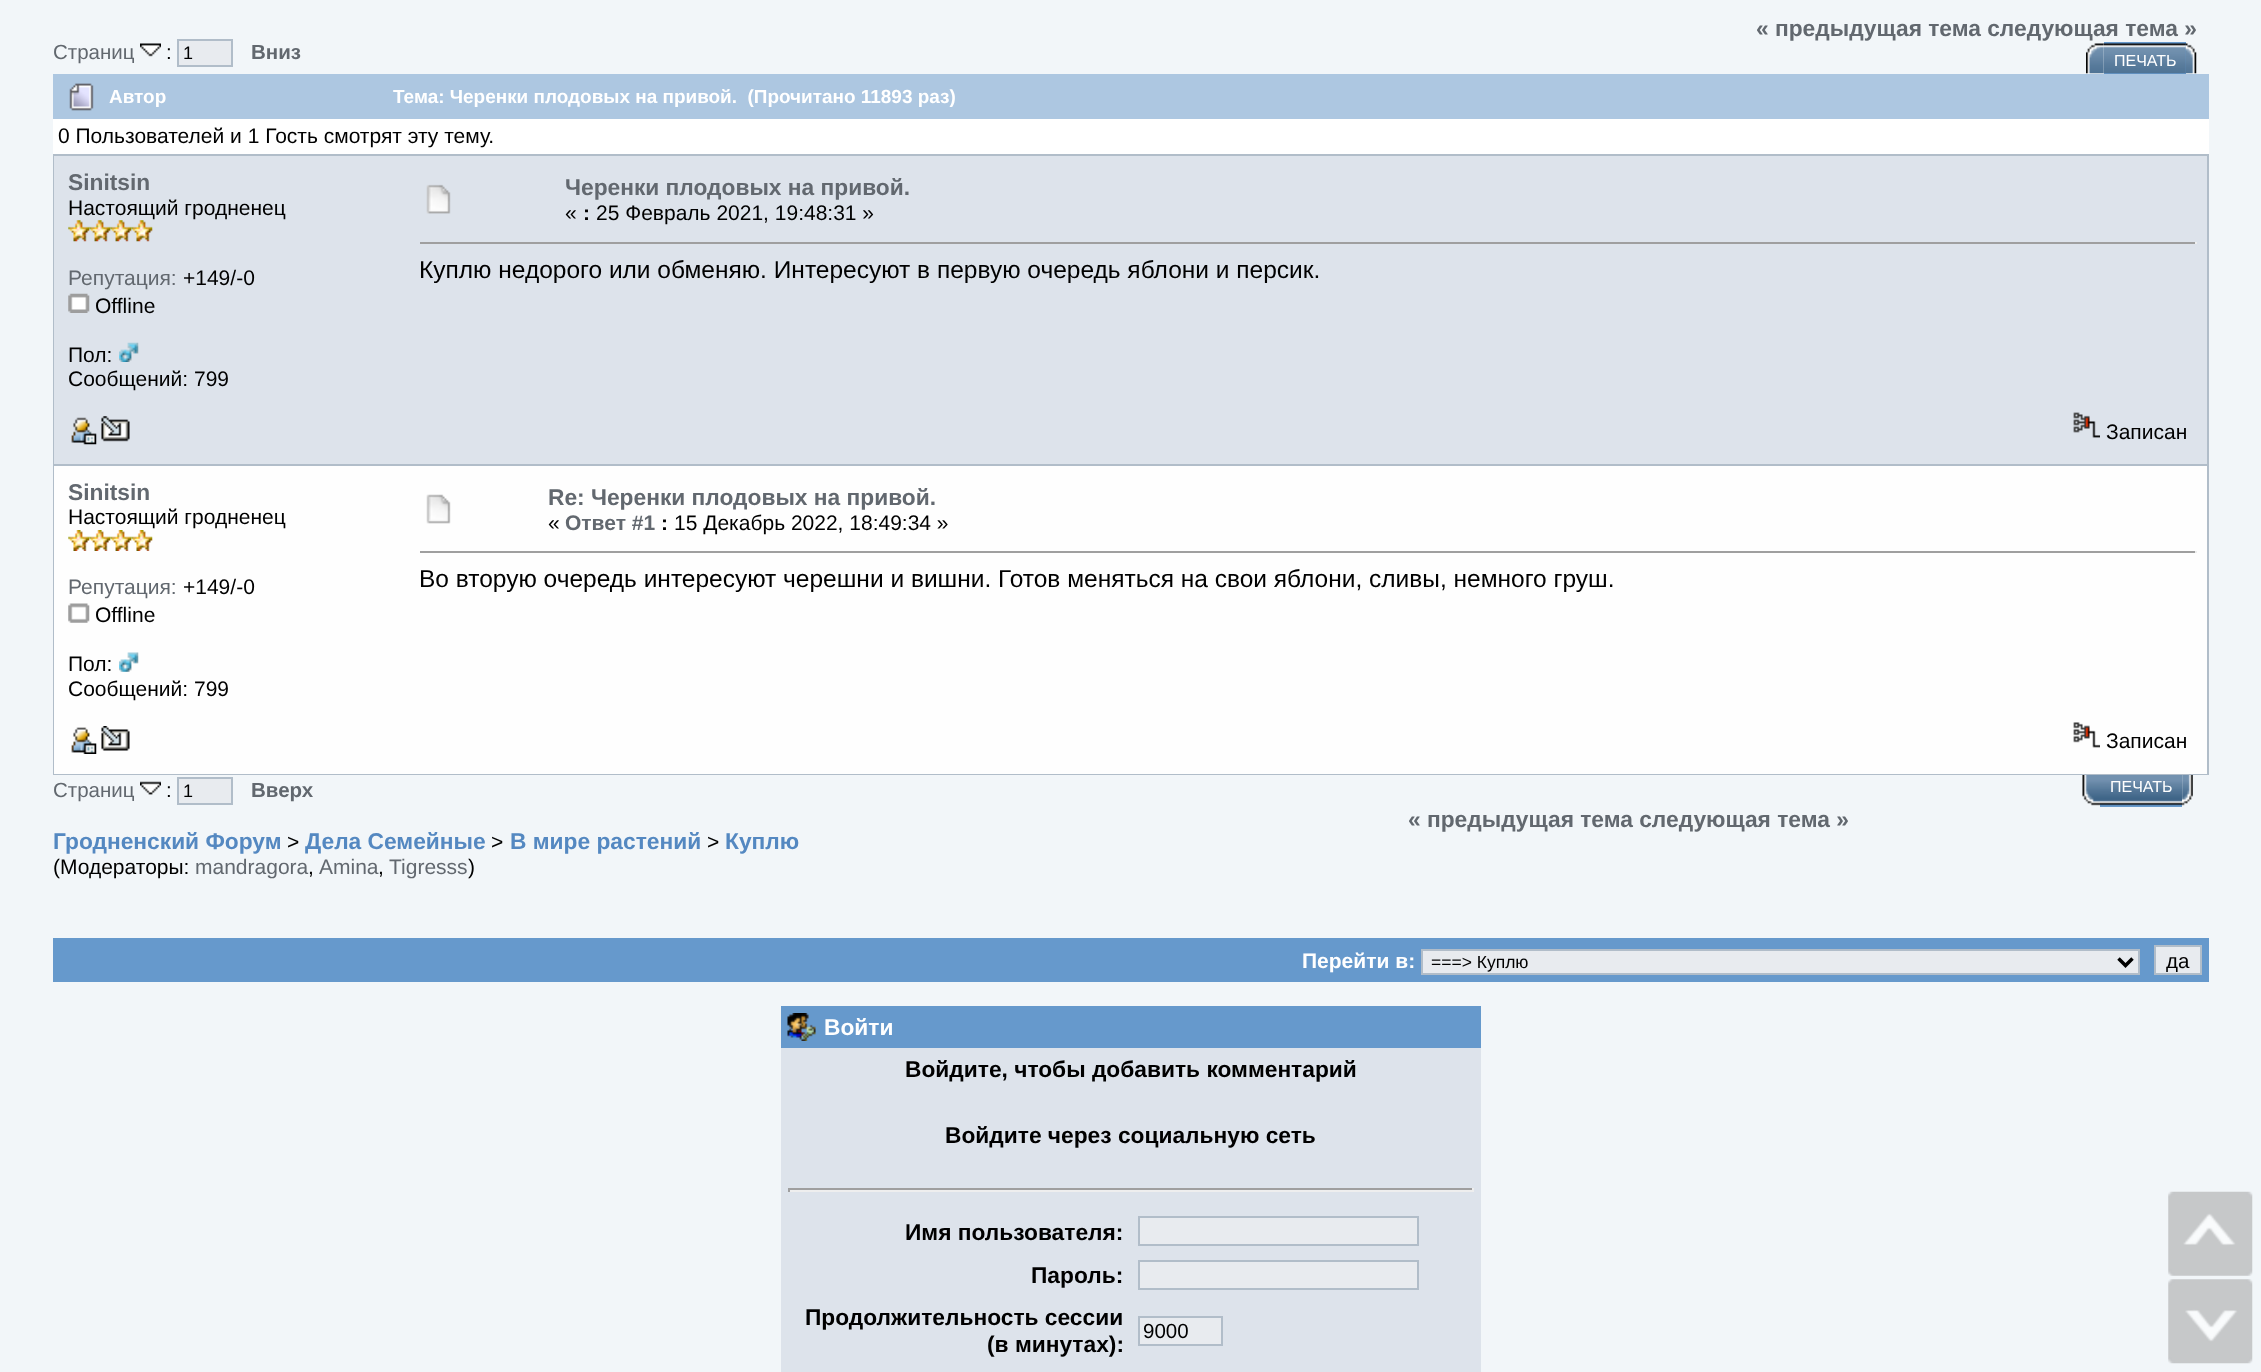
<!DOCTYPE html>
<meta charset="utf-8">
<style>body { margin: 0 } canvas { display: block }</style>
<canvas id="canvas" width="2261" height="1372"></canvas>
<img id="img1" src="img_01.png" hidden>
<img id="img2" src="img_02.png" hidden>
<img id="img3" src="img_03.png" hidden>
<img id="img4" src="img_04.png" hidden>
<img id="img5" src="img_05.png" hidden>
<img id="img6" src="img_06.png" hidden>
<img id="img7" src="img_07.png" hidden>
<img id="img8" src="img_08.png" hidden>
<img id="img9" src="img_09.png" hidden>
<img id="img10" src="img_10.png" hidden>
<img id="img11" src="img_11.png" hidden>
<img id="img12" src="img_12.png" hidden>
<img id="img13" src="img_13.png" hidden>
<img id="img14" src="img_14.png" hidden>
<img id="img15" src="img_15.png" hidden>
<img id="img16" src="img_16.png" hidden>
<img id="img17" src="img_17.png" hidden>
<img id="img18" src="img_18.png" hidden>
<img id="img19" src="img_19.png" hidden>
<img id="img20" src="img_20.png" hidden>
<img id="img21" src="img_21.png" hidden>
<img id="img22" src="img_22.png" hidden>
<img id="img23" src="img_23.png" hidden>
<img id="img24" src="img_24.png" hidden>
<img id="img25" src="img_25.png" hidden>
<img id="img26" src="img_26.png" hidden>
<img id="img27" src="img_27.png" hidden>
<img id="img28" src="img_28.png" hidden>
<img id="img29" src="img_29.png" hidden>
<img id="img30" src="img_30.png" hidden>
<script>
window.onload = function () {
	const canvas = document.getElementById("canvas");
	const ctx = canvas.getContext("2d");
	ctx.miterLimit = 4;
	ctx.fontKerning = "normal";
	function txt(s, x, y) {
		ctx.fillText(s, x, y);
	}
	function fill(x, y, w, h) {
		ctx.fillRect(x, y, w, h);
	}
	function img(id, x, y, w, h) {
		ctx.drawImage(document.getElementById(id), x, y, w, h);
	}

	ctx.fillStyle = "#F2F6F9";
	fill(0, 0, 2261, 1372);
	img("img1", 140, 43, 21, 14);
	ctx.fillStyle = "#E8EBEF";
	ctx.beginPath();
	ctx.rect(178, 40, 54, 26);
	ctx.fill();
	ctx.strokeStyle = "#B1BDC9";
	ctx.lineWidth = 2;
	ctx.stroke();
	img("img2", 2086, 43, 18, 31);
	ctx.fillStyle = "#6699CC";
	fill(2104, 42, 82, 32);
	img("img3", 2103, 43, 83, 31);
	img("img4", 2185, 43, 12, 31);
	ctx.fillStyle = "#FFFFFF";
	fill(53, 119, 2156, 35);
	ctx.fillStyle = "#ADC7E1";
	fill(53, 74, 2156, 45);
	img("img5", 69, 83, 25, 28);
	ctx.fillStyle = "#B1BDC9";
	fill(53, 154, 2156, 621);
	ctx.fillStyle = "#DDE3EB";
	fill(54, 156, 2153, 308);
	img("img6", 68, 220, 22, 22);
	img("img7", 89, 220, 22, 22);
	img("img7", 110, 220, 22, 22);
	img("img8", 131, 220, 22, 22);
	img("img9", 68, 293, 22, 20);
	img("img10", 119, 342, 20, 20);
	img("img11", 71, 417, 26, 28);
	img("img12", 101, 416, 29, 26);
	img("img13", 426, 184, 25, 30);
	ctx.fillStyle = "#9F9F9F";
	fill(420, 242, 1776, 2);
	ctx.fillStyle = "#EEEEEE";
	fill(2195, 242, 2, 2);
	img("img14", 2073, 412, 27, 26);
	ctx.fillStyle = "#FEFEFE";
	fill(54, 466, 2153, 308);
	img("img15", 68, 530, 22, 21);
	img("img16", 89, 530, 22, 21);
	img("img16", 110, 530, 22, 21);
	img("img17", 131, 530, 22, 21);
	img("img18", 68, 603, 22, 20);
	img("img19", 119, 652, 20, 20);
	img("img20", 71, 727, 26, 27);
	img("img21", 101, 726, 29, 25);
	img("img22", 426, 494, 25, 30);
	ctx.fillStyle = "#9F9F9F";
	fill(420, 551, 1776, 2);
	ctx.fillStyle = "#EEEEEE";
	fill(2195, 551, 2, 2);
	img("img23", 2073, 722, 27, 26);
	img("img24", 140, 781, 21, 14);
	ctx.fillStyle = "#E8EBEF";
	ctx.beginPath();
	ctx.rect(178, 778, 54, 26);
	ctx.fill();
	ctx.stroke();
	img("img25", 2082, 775, 18, 31);
	ctx.fillStyle = "#6699CC";
	fill(2100, 804, 82, 3);
	img("img26", 2100, 775, 83, 31);
	img("img27", 2182, 775, 11, 31);
	fill(53, 938, 2156, 44);
	ctx.fillStyle = "#E8EBEF";
	ctx.beginPath();
	ctx.rect(1422, 950, 717, 24);
	ctx.fill();
	ctx.stroke();
	ctx.beginPath();
	ctx.moveTo(2118.5, 958.5);
	ctx.lineTo(2125.5, 965.5);
	ctx.lineTo(2132.5, 958.5);
	ctx.strokeStyle = "#000000";
	ctx.lineWidth = 3.5;
	ctx.stroke();
	ctx.beginPath();
	ctx.rect(2155, 946, 46, 28);
	ctx.fill();
	ctx.strokeStyle = "#B1BDC9";
	ctx.lineWidth = 2;
	ctx.stroke();
	ctx.fillStyle = "#6699CC";
	fill(781, 1006, 700, 42);
	img("img28", 787, 1013, 29, 28);
	ctx.fillStyle = "#DDE3EB";
	fill(781, 1048, 700, 324);
	ctx.fillStyle = "#9F9F9F";
	fill(788, 1188, 686, 2);
	ctx.fillStyle = "#EEEEEE";
	fill(1472, 1188, 2, 4);
	fill(788, 1190, 686, 2);
	ctx.fillStyle = "#9F9F9F";
	fill(788, 1188, 2, 4);
	ctx.fillStyle = "#E8EBEF";
	ctx.beginPath();
	ctx.rect(1139, 1217, 279, 28);
	ctx.fill();
	ctx.stroke();
	ctx.beginPath();
	ctx.rect(1139, 1261, 279, 28);
	ctx.fill();
	ctx.stroke();
	ctx.beginPath();
	ctx.rect(1139, 1317, 83, 28);
	ctx.fill();
	ctx.stroke();
	img("img29", 2168, 1191, 85, 85);
	img("img30", 2168, 1279, 85, 85);
	ctx.font = "20.5px Liberation Sans";
	ctx.fillStyle = "#62686F";
	txt("Страниц", 53, 59);
	ctx.fillStyle = "#000000";
	txt(":", 166, 59);
	ctx.font = "18px Liberation Sans";
	txt("1", 183, 59);
	ctx.font = "bold 20.5px Liberation Sans";
	ctx.fillStyle = "#62686F";
	txt("Вниз", 251, 59);
	ctx.font = "bold 22.75px Liberation Sans";
	txt("« предыдущая тема следующая тема »", 1756, 36);
	ctx.font = "16px Liberation Sans";
	ctx.fillStyle = "#FFFFFF";
	txt("ПЕЧАТЬ", 2114, 66);
	ctx.font = "bold 18.95px Liberation Sans";
	txt("Автор", 109, 103);
	txt("Тема: Черенки плодовых на привой.  (Прочитано 11893 раз)", 393, 103);
	ctx.font = "21px Liberation Sans";
	ctx.fillStyle = "#000000";
	txt("0 Пользователей и 1 Гость смотрят эту тему.", 58, 143);
	ctx.font = "bold 22.75px Liberation Sans";
	ctx.fillStyle = "#62686F";
	txt("Sinitsin", 68, 190);
	ctx.font = "21px Liberation Sans";
	ctx.fillStyle = "#000000";
	txt("Настоящий гродненец", 68, 215);
	ctx.fillStyle = "#62686F";
	txt("Репутация:", 68, 285);
	ctx.fillStyle = "#000000";
	txt("+149/-0", 183, 285);
	txt("Offline", 95, 313);
	txt("Пол:", 68, 362);
	txt("Сообщений: 799", 68, 386);
	ctx.font = "bold 22.75px Liberation Sans";
	ctx.fillStyle = "#62686F";
	txt("Черенки плодовых на привой.", 565, 195);
	ctx.font = "21px Liberation Sans";
	ctx.fillStyle = "#000000";
	txt("«", 565, 220);
	ctx.font = "bold 21px Liberation Sans";
	txt(":", 583, 220);
	ctx.font = "21px Liberation Sans";
	txt("25 Февраль 2021, 19:48:31 »", 596, 220);
	ctx.font = "24.5px Liberation Sans";
	txt("Куплю недорого или обменяю. Интересуют в первую очередь яблони и персик.", 419, 278);
	ctx.font = "21px Liberation Sans";
	txt("Записан", 2106, 439);
	ctx.font = "bold 22.75px Liberation Sans";
	ctx.fillStyle = "#62686F";
	txt("Sinitsin", 68, 500);
	ctx.font = "21px Liberation Sans";
	ctx.fillStyle = "#000000";
	txt("Настоящий гродненец", 68, 524);
	ctx.fillStyle = "#62686F";
	txt("Репутация:", 68, 594);
	ctx.fillStyle = "#000000";
	txt("+149/-0", 183, 594);
	txt("Offline", 95, 622);
	txt("Пол:", 68, 671);
	txt("Сообщений: 799", 68, 696);
	ctx.font = "bold 22.75px Liberation Sans";
	ctx.fillStyle = "#62686F";
	txt("Re: Черенки плодовых на привой.", 548, 505);
	ctx.font = "21px Liberation Sans";
	ctx.fillStyle = "#000000";
	txt("«", 548, 530);
	ctx.font = "bold 21px Liberation Sans";
	ctx.fillStyle = "#62686F";
	txt("Ответ #1", 565, 530);
	ctx.fillStyle = "#000000";
	txt(":", 661, 530);
	ctx.font = "21px Liberation Sans";
	txt("15 Декабрь 2022, 18:49:34 »", 674, 530);
	ctx.font = "24.5px Liberation Sans";
	txt("Во вторую очередь интересуют черешни и вишни. Готов меняться на свои яблони, сливы, немного груш.", 419, 587);
	ctx.font = "21px Liberation Sans";
	txt("Записан", 2106, 748);
	ctx.font = "20.5px Liberation Sans";
	ctx.fillStyle = "#62686F";
	txt("Страниц", 53, 797);
	ctx.fillStyle = "#000000";
	txt(":", 166, 797);
	ctx.font = "18px Liberation Sans";
	txt("1", 183, 797);
	ctx.font = "bold 20.5px Liberation Sans";
	ctx.fillStyle = "#62686F";
	txt("Вверх", 251, 797);
	ctx.font = "16px Liberation Sans";
	ctx.fillStyle = "#FFFFFF";
	txt("ПЕЧАТЬ", 2110, 792);
	ctx.font = "bold 22.75px Liberation Sans";
	ctx.fillStyle = "#62686F";
	txt("« предыдущая тема следующая тема »", 1408, 827);
	ctx.fillStyle = "#5488C1";
	txt("Гродненский Форум", 53, 849);
	ctx.font = "21px Liberation Sans";
	ctx.fillStyle = "#000000";
	txt(">", 287, 849);
	ctx.font = "bold 22.75px Liberation Sans";
	ctx.fillStyle = "#5488C1";
	txt("Дела Семейные", 305, 849);
	ctx.font = "21px Liberation Sans";
	ctx.fillStyle = "#000000";
	txt(">", 491, 849);
	ctx.font = "bold 22.75px Liberation Sans";
	ctx.fillStyle = "#5488C1";
	txt("В мире растений", 510, 849);
	ctx.font = "21px Liberation Sans";
	ctx.fillStyle = "#000000";
	txt(">", 707, 849);
	ctx.font = "bold 22.75px Liberation Sans";
	ctx.fillStyle = "#5488C1";
	txt("Куплю", 725, 849);
	ctx.font = "21px Liberation Sans";
	ctx.fillStyle = "#000000";
	txt("(Модераторы:", 53, 874);
	ctx.fillStyle = "#62686F";
	txt("mandragora", 195, 874);
	ctx.fillStyle = "#000000";
	txt(",", 308, 874);
	ctx.fillStyle = "#62686F";
	txt("Amina", 319, 874);
	ctx.fillStyle = "#000000";
	txt(",", 378, 874);
	ctx.fillStyle = "#62686F";
	txt("Tigresss", 389, 874);
	ctx.fillStyle = "#000000";
	txt(")", 468, 874);
	ctx.font = "bold 21px Liberation Sans";
	ctx.fillStyle = "#FFFFFF";
	txt("Перейти в:", 1302, 968);
	ctx.font = "17.5px Liberation Sans";
	ctx.fillStyle = "#000000";
	txt("===> Куплю", 1431, 968);
	ctx.font = "20.5px Liberation Sans";
	txt("да", 2166, 968);
	ctx.font = "bold 22.75px Liberation Sans";
	ctx.fillStyle = "#FFFFFF";
	txt("Войти", 824, 1035);
	ctx.fillStyle = "#000000";
	txt("Войдите, чтобы добавить комментарий", 905, 1077);
	txt("Войдите через социальную сеть", 945, 1143);
	txt("Имя пользователя:", 905, 1240);
	txt("Пароль:", 1031, 1283);
	txt("Продолжительность сессии", 805, 1325);
	txt("(в минутах):", 987, 1352);
	ctx.font = "20.5px Liberation Sans";
	txt("9000", 1143, 1338);
};
</script>
